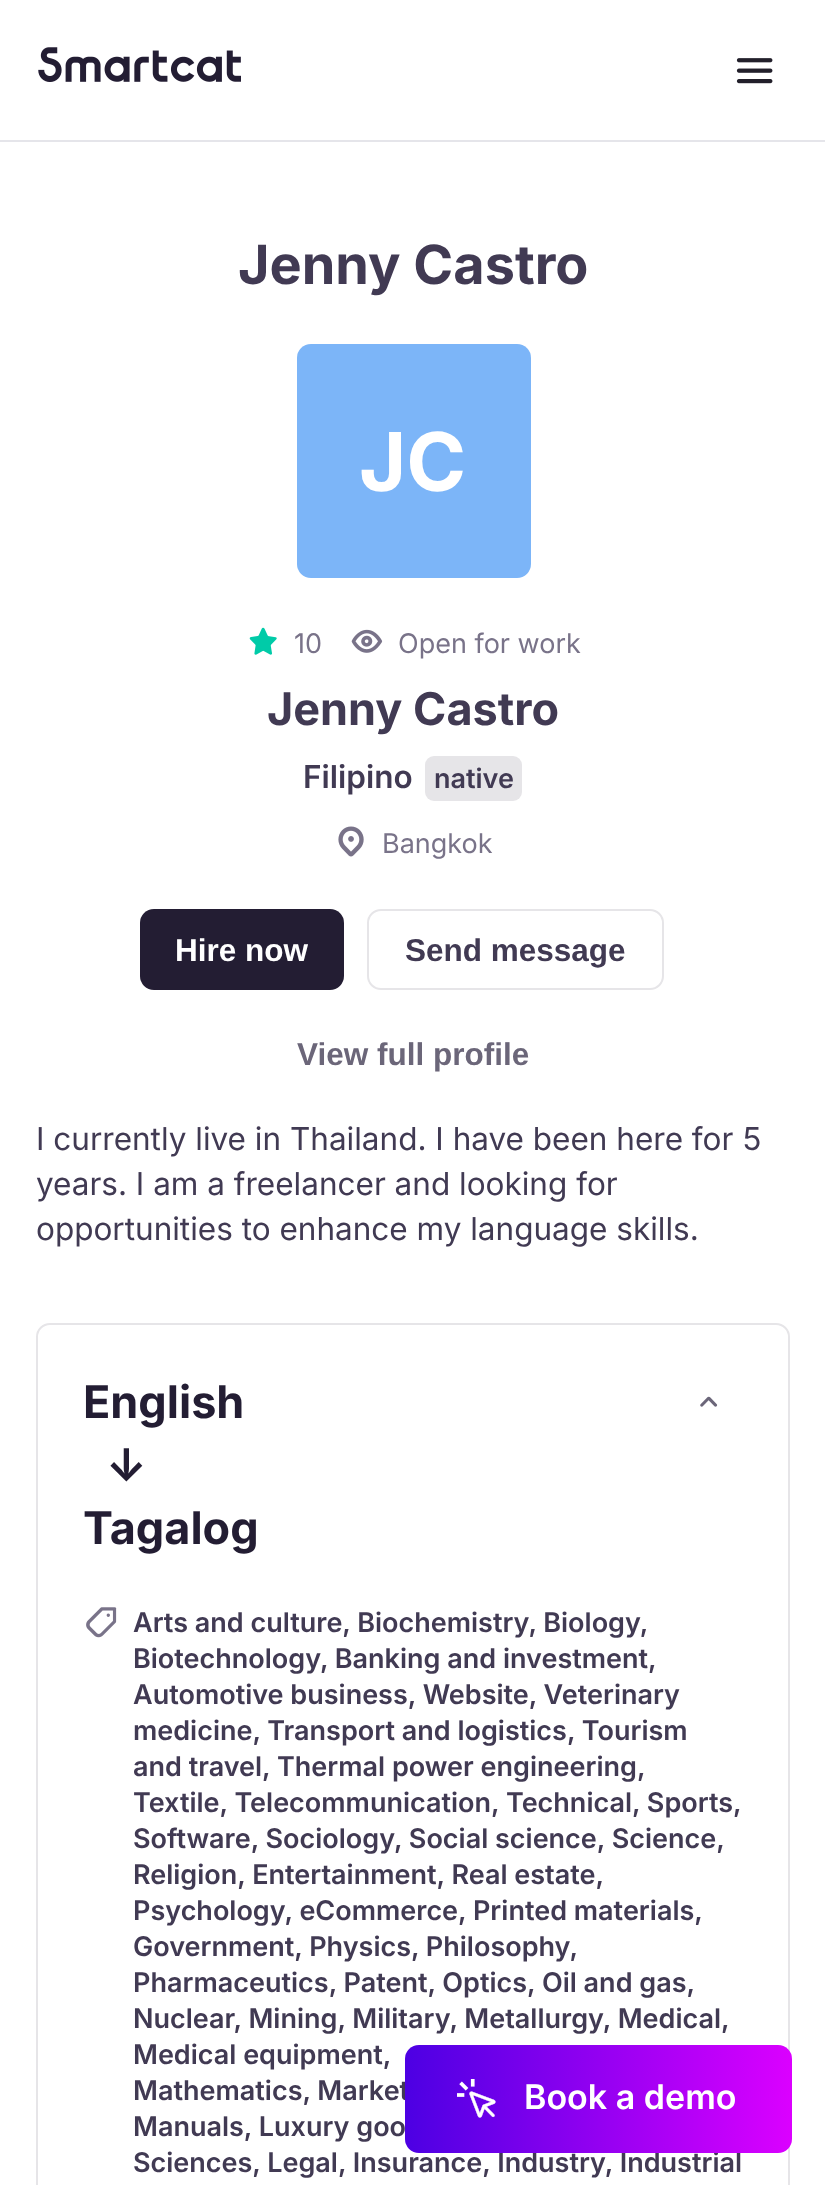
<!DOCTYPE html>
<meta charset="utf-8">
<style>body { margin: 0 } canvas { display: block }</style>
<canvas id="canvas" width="825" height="2185"></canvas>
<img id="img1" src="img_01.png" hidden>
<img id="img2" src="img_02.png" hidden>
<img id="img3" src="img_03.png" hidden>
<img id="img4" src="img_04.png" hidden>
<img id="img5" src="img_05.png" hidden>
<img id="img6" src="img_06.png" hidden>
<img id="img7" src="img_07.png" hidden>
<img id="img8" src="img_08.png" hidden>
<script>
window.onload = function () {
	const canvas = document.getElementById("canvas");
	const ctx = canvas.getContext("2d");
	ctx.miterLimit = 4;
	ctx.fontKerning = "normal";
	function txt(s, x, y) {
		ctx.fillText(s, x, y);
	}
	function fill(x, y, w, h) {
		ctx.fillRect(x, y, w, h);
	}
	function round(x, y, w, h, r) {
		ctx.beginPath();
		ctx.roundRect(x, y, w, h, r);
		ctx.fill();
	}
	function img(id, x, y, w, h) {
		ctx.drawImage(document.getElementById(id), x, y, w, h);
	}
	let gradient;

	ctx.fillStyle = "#FFFFFF";
	fill(0, 0, 825, 2185);
	ctx.fillStyle = "#E5E5EA";
	fill(0, 140, 825, 2);
	img("img1", 38, 47, 203, 35);
	img("img2", 736, 58, 37, 26);
	ctx.fillStyle = "#7CB5F8";
	round(297, 344, 234, 234, 14);
	img("img3", 249, 627, 28, 28);
	img("img4", 351, 629, 32, 24);
	ctx.fillStyle = "#E6E5E8";
	round(425, 756, 97, 45, 9);
	img("img5", 338, 826, 26, 31);
	ctx.fillStyle = "#231D33";
	round(140, 909, 204, 81, 14);
	ctx.beginPath();
	ctx.roundRect(368, 910, 295, 79, 13);
	ctx.strokeStyle = "#E6E5E8";
	ctx.lineWidth = 2;
	ctx.stroke();
	ctx.beginPath();
	ctx.roundRect(37, 1324, 752, 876, 13);
	ctx.stroke();
	img("img6", 700, 1396, 18, 11);
	img("img7", 86, 1607, 31, 31);
	ctx.font = "bold 54px Inter";
	ctx.fillStyle = "#413A53";
	txt("Jenny Castro", 238, 284);
	ctx.font = "bold 81px Inter";
	ctx.fillStyle = "#FFFFFF";
	txt("JC", 359, 491);
	ctx.font = "27px Inter";
	ctx.fillStyle = "#797389";
	txt("10", 294, 653);
	txt("Open for work", 398, 653);
	ctx.font = "bold 45px Inter";
	ctx.fillStyle = "#413A53";
	txt("Jenny Castro", 267, 725);
	ctx.font = "600 31.5px Inter";
	txt("Filipino", 303, 788);
	ctx.font = "600 27px Inter";
	txt("native", 434, 788);
	ctx.font = "27px Inter";
	ctx.fillStyle = "#797389";
	txt("Bangkok", 382, 853);
	ctx.font = "bold 31.5px Liberation Sans";
	ctx.fillStyle = "#FFFFFF";
	txt("Hire now", 175, 961);
	ctx.fillStyle = "#413A53";
	txt("Send message", 405, 961);
	ctx.fillStyle = "#6B6679";
	txt("View full profile", 297, 1065);
	ctx.font = "31.5px Inter";
	ctx.fillStyle = "#413A53";
	txt("I currently live in Thailand. I have been here for 5", 36, 1150);
	txt("years. I am a freelancer and looking for", 36, 1195);
	txt("opportunities to enhance my language skills.", 36, 1240);
	ctx.font = "bold 45px Inter";
	ctx.fillStyle = "#231D33";
	txt("English", 83, 1418);
	txt("↓", 106, 1481);
	txt("Tagalog", 83, 1544);
	ctx.font = "600 27px Inter";
	ctx.fillStyle = "#413A53";
	txt("Arts and culture, Biochemistry, Biology,", 133, 1632);
	txt("Biotechnology, Banking and investment,", 133, 1668);
	txt("Automotive business, Website, Veterinary", 133, 1704);
	txt("medicine, Transport and logistics, Tourism", 133, 1740);
	txt("and travel, Thermal power engineering,", 133, 1776);
	txt("Textile, Telecommunication, Technical, Sports,", 133, 1812);
	txt("Software, Sociology, Social science, Science,", 133, 1848);
	txt("Religion, Entertainment, Real estate,", 133, 1884);
	txt("Psychology, eCommerce, Printed materials,", 133, 1920);
	txt("Government, Physics, Philosophy,", 133, 1956);
	txt("Pharmaceutics, Patent, Optics, Oil and gas,", 133, 1992);
	txt("Nuclear, Mining, Military, Metallurgy, Medical,", 133, 2028);
	txt("Medical equipment,", 133, 2064);
	txt("Mathematics, Market", 133, 2100);
	txt("Manuals, Luxury goo", 133, 2136);
	txt("Sciences, Legal, Insurance, Industry, Industrial", 133, 2172);
	gradient = ctx.createLinearGradient(792, 2099, 405, 2099);
	gradient.addColorStop(0, "#DB00FF");
	gradient.addColorStop(1, "#4C00E3");
	ctx.fillStyle = gradient;
	round(405, 2045, 387, 108, 14);
	img("img8", 457, 2079, 39, 39);
	ctx.font = "600 34px Inter";
	ctx.fillStyle = "#FFFFFF";
	txt("Book a demo", 524, 2109);
};
</script>
